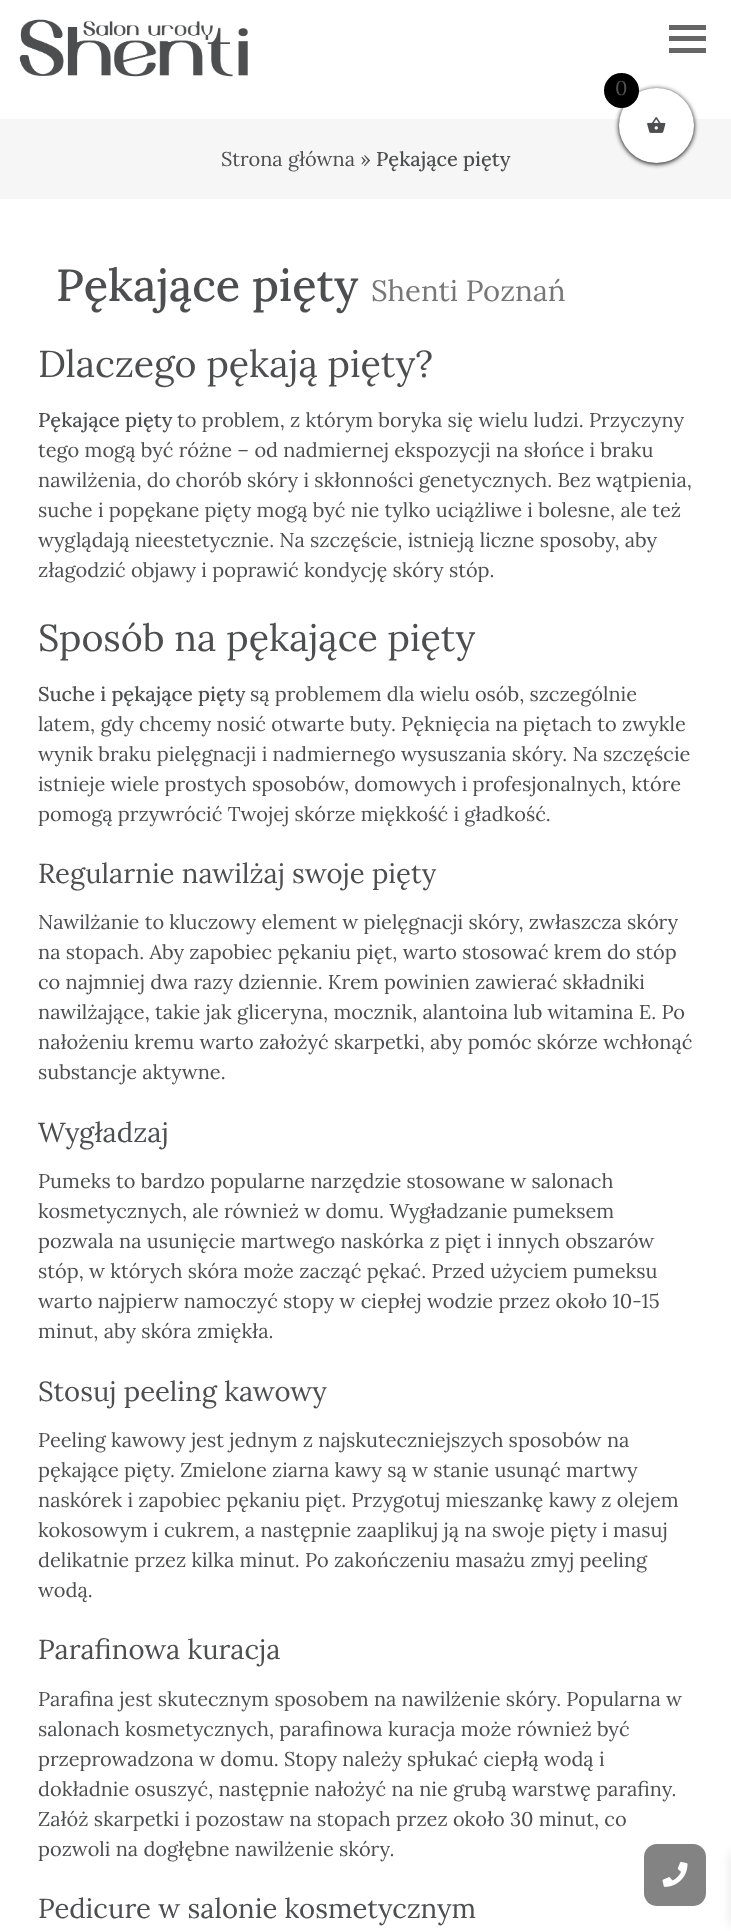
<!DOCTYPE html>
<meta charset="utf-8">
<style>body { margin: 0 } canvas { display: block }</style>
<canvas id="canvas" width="731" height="1931"></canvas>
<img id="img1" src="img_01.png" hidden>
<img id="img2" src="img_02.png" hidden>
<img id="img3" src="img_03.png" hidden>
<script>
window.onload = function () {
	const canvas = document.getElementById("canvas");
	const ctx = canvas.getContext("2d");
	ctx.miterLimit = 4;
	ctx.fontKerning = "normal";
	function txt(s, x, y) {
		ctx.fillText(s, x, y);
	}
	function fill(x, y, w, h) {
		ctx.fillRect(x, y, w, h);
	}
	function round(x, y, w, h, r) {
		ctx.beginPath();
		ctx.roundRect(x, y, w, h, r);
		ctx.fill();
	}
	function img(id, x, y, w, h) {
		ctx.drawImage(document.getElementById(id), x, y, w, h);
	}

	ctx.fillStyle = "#FFFFFF";
	fill(0, 0, 731, 1931);
	img("img1", 19, 19, 229, 58);
	ctx.fillStyle = "#666666";
	fill(669, 25, 37, 5);
	fill(669, 36, 37, 5);
	fill(669, 48, 37, 5);
	ctx.fillStyle = "#F6F6F6";
	fill(0, 119, 731, 80);
	ctx.fillStyle = "#000000";
	ctx.filter = "blur(2.5px)";
	ctx.beginPath();
	ctx.roundRect(619, 89, 75, 75, 37.5);
	ctx.fill();
	ctx.filter = "none";
	ctx.fillStyle = "#FFFFFF";
	ctx.beginPath();
	ctx.arc(656.5, 125.5, 37.5, 0, Math.PI * 2);
	ctx.fill();
	ctx.fillStyle = "#000000";
	ctx.beginPath();
	ctx.arc(621.5, 90.5, 17.5, 0, Math.PI * 2);
	ctx.fill();
	img("img2", 647, 117, 19, 16);
	ctx.fillStyle = "rgba(0, 0, 0, 0.1)";
	ctx.filter = "blur(6px)";
	ctx.beginPath();
	ctx.rect(731, 1853, 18, 72);
	ctx.fill();
	ctx.filter = "none";
	ctx.fillStyle = "#838383";
	round(644, 1844, 62, 62, 13);
	img("img3", 662, 1861, 26, 26);
	ctx.font = "20px Lora";
	ctx.fillStyle = "#4D4E50";
	txt("0", 615, 95);
	txt("Strona główna »", 221, 166);
	ctx.font = "500 20px Lora";
	txt("Pękające pięty", 376, 166);
	ctx.font = "500 45px Lora";
	txt("Pękające pięty", 56, 301);
	ctx.font = "29.25px Lora";
	ctx.fillStyle = "#777777";
	txt("Shenti Poznań", 371, 301);
	ctx.font = "37.5px Lora";
	ctx.fillStyle = "#4D4E50";
	txt("Dlaczego pękają pięty?", 38, 377);
	ctx.font = "500 20px Lora";
	txt("Pękające pięty", 38, 427);
	ctx.font = "20px Lora";
	txt("to problem, z którym boryka się wielu ludzi. Przyczyny", 177, 427);
	txt("tego mogą być różne – od nadmiernej ekspozycji na słońce i braku", 38, 457);
	txt("nawilżenia, do chorób skóry i skłonności genetycznych. Bez wątpienia,", 38, 487);
	txt("suche i popękane pięty mogą być nie tylko uciążliwe i bolesne, ale też", 38, 517);
	txt("wyglądają nieestetycznie. Na szczęście, istnieją liczne sposoby, aby", 38, 547);
	txt("złagodzić objawy i poprawić kondycję skóry stóp.", 38, 577);
	ctx.font = "37.5px Lora";
	txt("Sposób na pękające pięty", 38, 651);
	ctx.font = "500 20px Lora";
	txt("Suche i pękające pięty", 38, 701);
	ctx.font = "20px Lora";
	txt("są problemem dla wielu osób, szczególnie", 250, 701);
	txt("latem, gdy chcemy nosić otwarte buty. Pęknięcia na piętach to zwykle", 38, 731);
	txt("wynik braku pielęgnacji i nadmiernego wysuszania skóry. Na szczęście", 38, 761);
	txt("istnieje wiele prostych sposobów, domowych i profesjonalnych, które", 38, 791);
	txt("pomogą przywrócić Twojej skórze miękkość i gładkość.", 38, 821);
	ctx.font = "27.5px Lora";
	txt("Regularnie nawilżaj swoje pięty", 38, 883);
	ctx.font = "20px Lora";
	txt("Nawilżanie to kluczowy element w pielęgnacji skóry, zwłaszcza skóry", 38, 929);
	txt("na stopach. Aby zapobiec pękaniu pięt, warto stosować krem do stóp", 38, 959);
	txt("co najmniej dwa razy dziennie. Krem powinien zawierać składniki", 38, 989);
	txt("nawilżające, takie jak gliceryna, mocznik, alantoina lub witamina E. Po", 38, 1019);
	txt("nałożeniu kremu warto założyć skarpetki, aby pomóc skórze wchłonąć", 38, 1049);
	txt("substancje aktywne.", 38, 1079);
	ctx.font = "27.5px Lora";
	txt("Wygładzaj", 38, 1142);
	ctx.font = "20px Lora";
	txt("Pumeks to bardzo popularne narzędzie stosowane w salonach", 38, 1188);
	txt("kosmetycznych, ale również w domu. Wygładzanie pumeksem", 38, 1218);
	txt("pozwala na usunięcie martwego naskórka z pięt i innych obszarów", 38, 1248);
	txt("stóp, w których skóra może zacząć pękać. Przed użyciem pumeksu", 38, 1278);
	txt("warto najpierw namoczyć stopy w ciepłej wodzie przez około 10-15", 38, 1308);
	txt("minut, aby skóra zmiękła.", 38, 1338);
	ctx.font = "27.5px Lora";
	txt("Stosuj peeling kawowy", 38, 1401);
	ctx.font = "20px Lora";
	txt("Peeling kawowy jest jednym z najskuteczniejszych sposobów na", 38, 1447);
	txt("pękające pięty. Zmielone ziarna kawy są w stanie usunąć martwy", 38, 1477);
	txt("naskórek i zapobiec pękaniu pięt. Przygotuj mieszankę kawy z olejem", 38, 1507);
	txt("kokosowym i cukrem, a następnie zaaplikuj ją na swoje pięty i masuj", 38, 1537);
	txt("delikatnie przez kilka minut. Po zakończeniu masażu zmyj peeling", 38, 1567);
	txt("wodą.", 38, 1597);
	ctx.font = "27.5px Lora";
	txt("Parafinowa kuracja", 38, 1659);
	ctx.font = "20px Lora";
	txt("Parafina jest skutecznym sposobem na nawilżenie skóry. Popularna w", 38, 1706);
	txt("salonach kosmetycznych, parafinowa kuracja może również być", 38, 1736);
	txt("przeprowadzona w domu. Stopy należy spłukać ciepłą wodą i", 38, 1766);
	txt("dokładnie osuszyć, następnie nałożyć na nie grubą warstwę parafiny.", 38, 1796);
	txt("Załóż skarpetki i pozostaw na stopach przez około 30 minut, co", 38, 1826);
	txt("pozwoli na dogłębne nawilżenie skóry.", 38, 1856);
	ctx.font = "27.5px Lora";
	txt("Pedicure w salonie kosmetycznym", 38, 1918);
};
</script>
